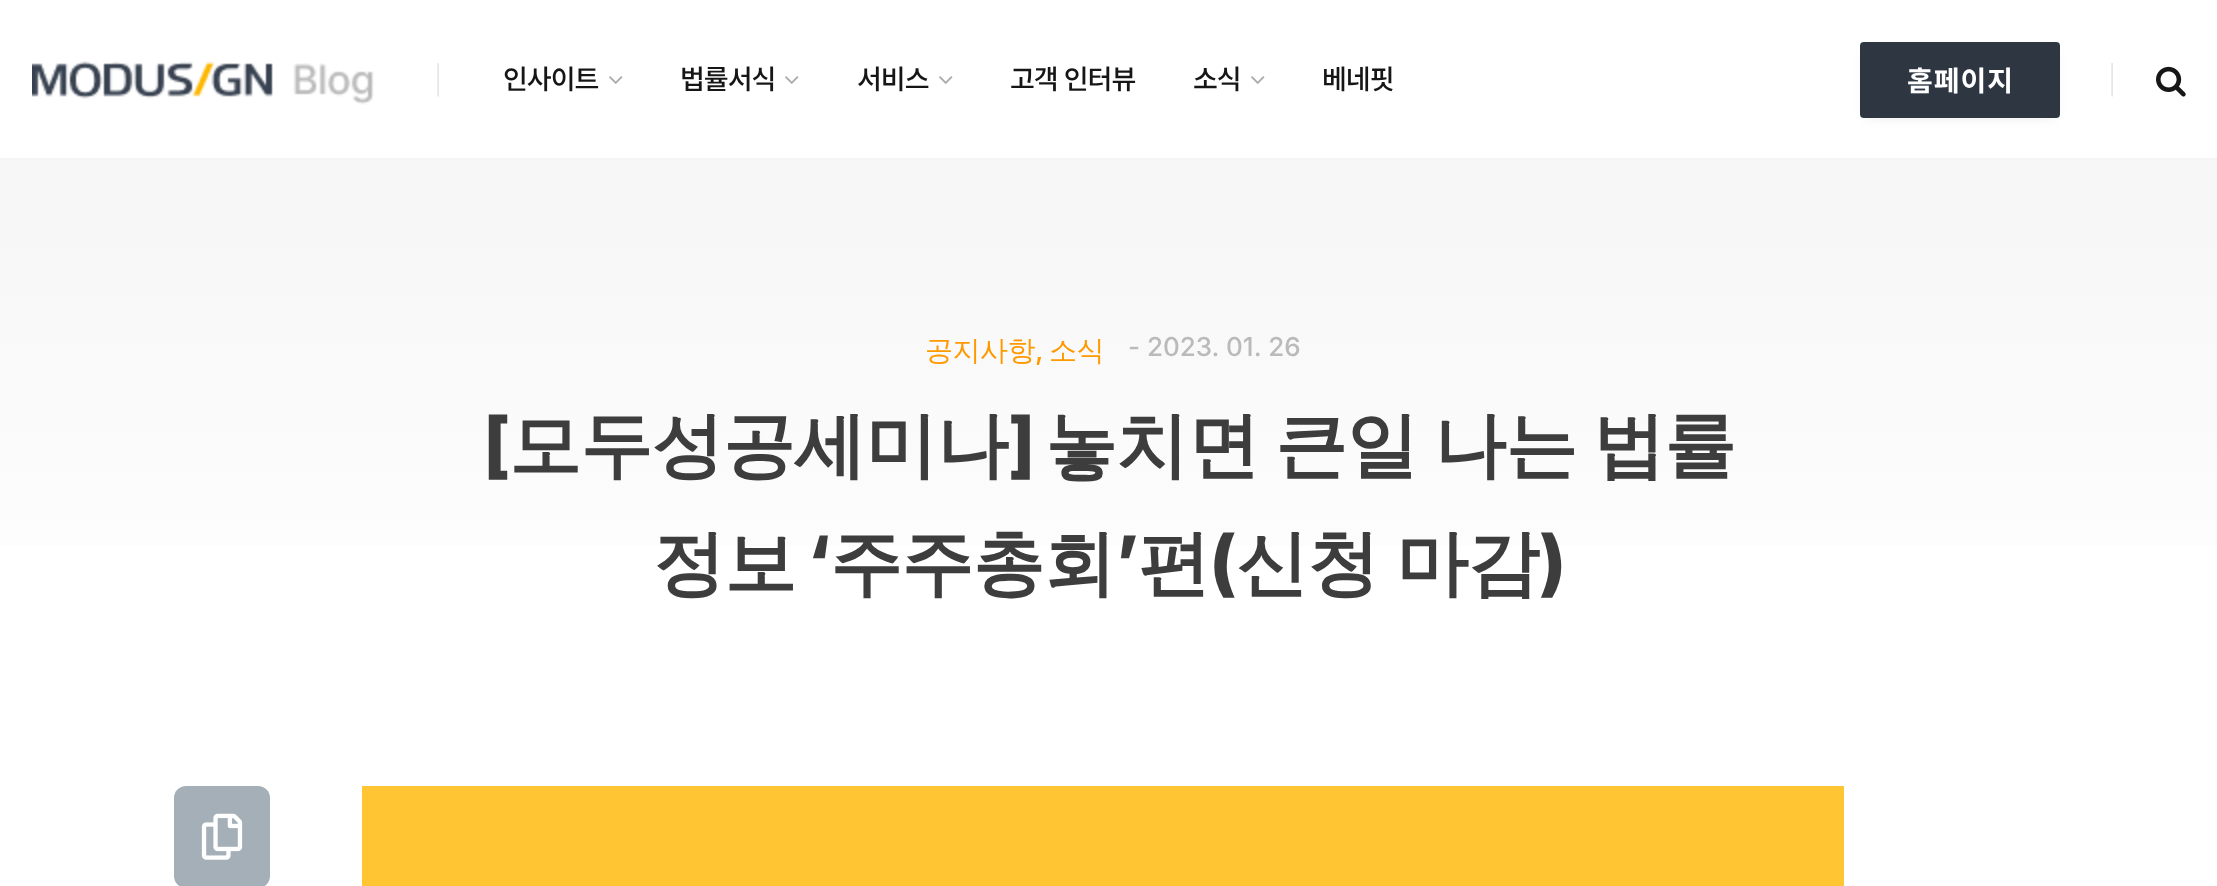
<!DOCTYPE html>
<meta charset="utf-8">
<style>body { margin: 0 } canvas { display: block }</style>
<canvas id="canvas" width="2217" height="886"></canvas>
<img id="img1" src="img_01.png" hidden>
<img id="img2" src="img_02.png" hidden>
<img id="img3" src="img_03.png" hidden>
<img id="img4" src="img_04.png" hidden>
<script>
window.onload = function () {
	const canvas = document.getElementById("canvas");
	const ctx = canvas.getContext("2d");
	ctx.miterLimit = 4;
	ctx.fontKerning = "normal";
	function txt(s, x, y) {
		ctx.fillText(s, x, y);
	}
	function fill(x, y, w, h) {
		ctx.fillRect(x, y, w, h);
	}
	function round(x, y, w, h, r) {
		ctx.beginPath();
		ctx.roundRect(x, y, w, h, r);
		ctx.fill();
	}
	function img(id, x, y, w, h) {
		ctx.drawImage(document.getElementById(id), x, y, w, h);
	}
	let gradient;

	ctx.fillStyle = "#FFFFFF";
	fill(0, 0, 2217, 886);
	ctx.fillStyle = "#F5F5F5";
	fill(0, 158, 2217, 2);
	img("img1", 32, 61, 342, 44);
	img("img2", 609, 76, 14, 8);
	img("img2", 785, 76, 14, 8);
	img("img2", 939, 76, 14, 8);
	img("img2", 1251, 76, 14, 8);
	ctx.fillStyle = "rgba(0, 0, 0, 0.16)";
	ctx.filter = "blur(7px)";
	ctx.beginPath();
	ctx.rect(1868, 54, 184, 60);
	ctx.fill();
	ctx.filter = "none";
	ctx.fillStyle = "#2E3642";
	round(1860, 42, 200, 76, 4);
	img("img3", 2156, 66, 30, 31);
	gradient = ctx.createLinearGradient(1109, 694, 1109, 160);
	gradient.addColorStop(0, "#FFFFFF");
	gradient.addColorStop(1, "#F6F6F6");
	ctx.fillStyle = gradient;
	fill(0, 160, 2217, 386);
	ctx.fillStyle = "#A4AFB7";
	round(174, 786, 96, 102, 12);
	img("img4", 201, 813, 42, 47);
	ctx.fillStyle = "#FFC533";
	fill(362, 786, 1482, 100);
	ctx.font = "200 28px Inter";
	ctx.fillStyle = "#DADCE0";
	txt("|", 434, 90);
	ctx.letterSpacing = "-1px";
	ctx.font = "500 27px Noto Sans KR";
	ctx.fillStyle = "#161616";
	txt("인사이트", 503, 89);
	txt("법률서식", 680, 89);
	txt("서비스", 857, 89);
	ctx.wordSpacing = "1px";
	txt("고객 인터뷰", 1010, 89);
	ctx.wordSpacing = "0px";
	txt("소식", 1193, 89);
	txt("베네핏", 1322, 89);
	ctx.letterSpacing = "1px";
	ctx.font = "bold 28px Noto Sans KR";
	ctx.fillStyle = "#FFFFFF";
	txt("홈페이지", 1907, 91);
	ctx.letterSpacing = "0px";
	ctx.font = "200 28px Inter";
	ctx.fillStyle = "#DADCE0";
	txt("|", 2108, 90);
	ctx.letterSpacing = "-0.5px";
	ctx.font = "500 28px WenQuanYi Zen Hei";
	ctx.fillStyle = "#FF9900";
	txt("공지사항", 925, 360);
	ctx.font = "500 28px Inter";
	txt(",", 1035, 360);
	ctx.font = "500 28px WenQuanYi Zen Hei";
	txt("소식", 1049, 360);
	ctx.letterSpacing = "0px";
	ctx.font = "500 26px Inter";
	ctx.fillStyle = "#BABABA";
	txt("- 2023. 01. 26", 1128, 356);
	ctx.letterSpacing = "-0.75px";
	ctx.font = "800 72px Inter";
	ctx.fillStyle = "#3D3D3D";
	txt("[", 483, 470);
	ctx.font = "bold 72px WenQuanYi Zen Hei";
	txt("모두성공세미나", 509, 470);
	ctx.font = "800 72px Inter";
	txt("]", 1008, 470);
	ctx.wordSpacing = "-4.5px";
	ctx.font = "bold 72px WenQuanYi Zen Hei";
	txt("놓치면 큰일 나는 법률", 1045, 470);
	ctx.wordSpacing = "0px";
	txt("정보", 653, 588);
	ctx.font = "800 72px Inter";
	txt("‘", 807, 588);
	ctx.font = "bold 72px WenQuanYi Zen Hei";
	txt("주주총회", 830, 588);
	ctx.font = "800 72px Inter";
	txt("’", 1115, 588);
	ctx.font = "bold 72px WenQuanYi Zen Hei";
	txt("편", 1138, 588);
	ctx.font = "800 72px Inter";
	txt("(", 1209, 588);
	ctx.wordSpacing = "-3px";
	ctx.font = "bold 72px WenQuanYi Zen Hei";
	txt("신청 마감", 1236, 588);
	ctx.wordSpacing = "0px";
	ctx.font = "800 72px Inter";
	txt(")", 1539, 588);
};
</script>
